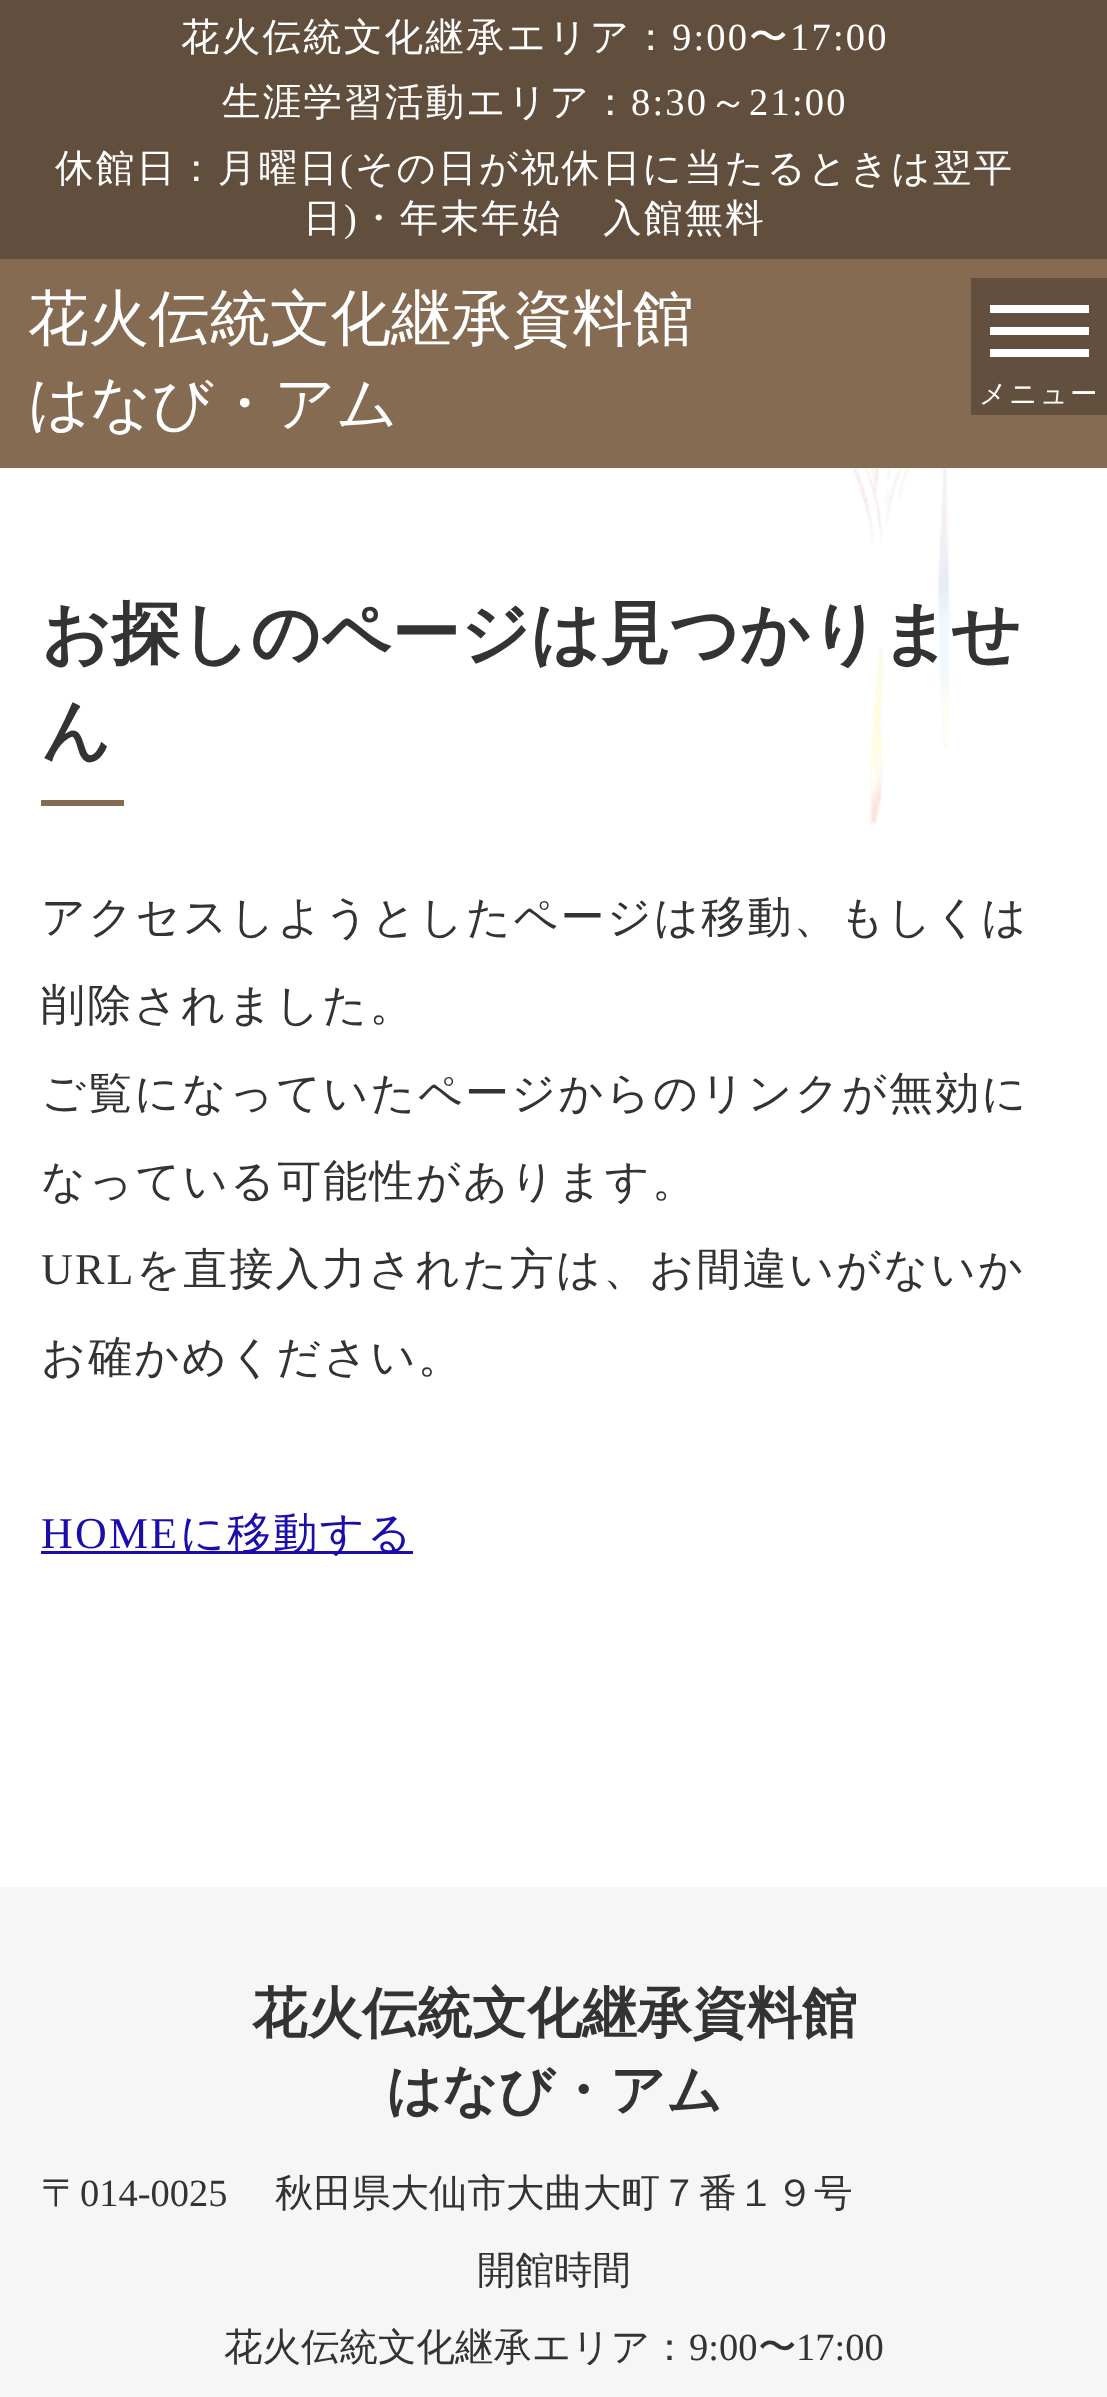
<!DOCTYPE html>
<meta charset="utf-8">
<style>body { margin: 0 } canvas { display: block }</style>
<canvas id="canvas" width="1107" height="2397"></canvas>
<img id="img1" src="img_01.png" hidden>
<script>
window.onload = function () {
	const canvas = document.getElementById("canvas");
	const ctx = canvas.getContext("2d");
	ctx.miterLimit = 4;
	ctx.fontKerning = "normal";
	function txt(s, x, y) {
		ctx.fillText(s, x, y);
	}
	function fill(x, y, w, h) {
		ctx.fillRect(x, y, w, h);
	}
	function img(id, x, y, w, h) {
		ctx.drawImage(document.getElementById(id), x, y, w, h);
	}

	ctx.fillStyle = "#FFFFFF";
	fill(0, 0, 1107, 2397);
	img("img1", 701, 468, 363, 357);
	ctx.fillStyle = "#866B53";
	fill(0, 259, 1107, 209);
	ctx.fillStyle = "#624E3D";
	fill(0, 0, 1107, 259);
	ctx.fillStyle = "#634F3D";
	fill(971, 278, 136, 137);
	ctx.fillStyle = "#FFFFFF";
	fill(990, 305, 99, 8);
	fill(990, 327, 99, 8);
	fill(990, 349, 99, 8);
	ctx.fillStyle = "#866B53";
	fill(41, 800, 83, 6);
	ctx.fillStyle = "#1A0DAB";
	fill(41, 1551, 372, 3);
	ctx.fillStyle = "#F6F6F6";
	fill(0, 1887, 1107, 510);
	ctx.letterSpacing = "2.2px";
	ctx.font = "500 38.5px WenQuanYi Zen Hei";
	ctx.fillStyle = "#FFFFFF";
	txt("花火伝統文化継承エリア：", 181, 50);
	ctx.font = "38.5px Liberation Serif";
	txt("9:00", 672, 50);
	ctx.font = "500 38.5px WenQuanYi Zen Hei";
	txt("〜", 749, 50);
	ctx.font = "38.5px Liberation Serif";
	txt("17:00", 790, 50);
	ctx.font = "500 38.5px WenQuanYi Zen Hei";
	txt("生涯学習活動エリア：", 222, 115);
	ctx.font = "38.5px Liberation Serif";
	txt("8:30", 631, 115);
	ctx.font = "500 38.5px WenQuanYi Zen Hei";
	txt("～", 709, 115);
	ctx.font = "38.5px Liberation Serif";
	txt("21:00", 749, 115);
	ctx.font = "500 38.5px WenQuanYi Zen Hei";
	txt("休館日：月曜日", 55, 181);
	ctx.font = "38.5px Liberation Serif";
	txt("(", 340, 181);
	ctx.font = "500 38.5px WenQuanYi Zen Hei";
	txt("その日が祝休日に当たるときは翌平", 355, 181);
	txt("日", 303, 231);
	ctx.font = "38.5px Liberation Serif";
	txt(")", 344, 231);
	ctx.font = "500 38.5px WenQuanYi Zen Hei";
	txt("・年末年始　入館無料", 359, 231);
	ctx.letterSpacing = "0px";
	ctx.font = "500 60.5px WenQuanYi Zen Hei";
	txt("花火伝統文化継承資料館", 28, 339);
	txt("はなび・アム", 28, 424);
	ctx.letterSpacing = "2.2px";
	ctx.font = "500 27.5px WenQuanYi Zen Hei";
	txt("メニュー", 979, 403);
	ctx.letterSpacing = "0px";
	ctx.font = "bold 68.75px WenQuanYi Zen Hei";
	ctx.fillStyle = "#333333";
	txt("お探しのページは見つかりませ", 41, 657);
	txt("ん", 41, 754);
	ctx.letterSpacing = "2.2px";
	ctx.font = "500 44px WenQuanYi Zen Hei";
	txt("アクセスしようとしたページは移動、もしくは", 41, 932);
	txt("削除されました。", 41, 1020);
	txt("ご覧になっていたページからのリンクが無効に", 41, 1108);
	txt("なっている可能性があります。", 41, 1196);
	ctx.font = "44px Liberation Serif";
	txt("URL", 41, 1284);
	ctx.font = "500 44px WenQuanYi Zen Hei";
	txt("を直接入力された方は、お間違いがないか", 136, 1284);
	txt("お確かめください。", 41, 1372);
	ctx.font = "44px Liberation Serif";
	ctx.fillStyle = "#1A0DAB";
	txt("HOME", 41, 1548);
	ctx.font = "500 44px WenQuanYi Zen Hei";
	txt("に移動する", 180, 1548);
	ctx.letterSpacing = "0px";
	ctx.font = "bold 55px WenQuanYi Zen Hei";
	ctx.fillStyle = "#333333";
	txt("花火伝統文化継承資料館", 252, 2032);
	txt("はなび・アム", 386, 2109);
	ctx.font = "500 38.5px WenQuanYi Zen Hei";
	txt("〒", 41, 2206);
	ctx.font = "38.5px Liberation Serif";
	txt("014-0025", 80, 2206);
	ctx.font = "500 38.5px WenQuanYi Zen Hei";
	txt("秋田県大仙市大曲大町７番１９号", 275, 2206);
	txt("開館時間", 477, 2283);
	txt("花火伝統文化継承エリア：", 224, 2360);
	ctx.font = "38.5px Liberation Serif";
	txt("9:00", 689, 2360);
	ctx.font = "500 38.5px WenQuanYi Zen Hei";
	txt("〜", 758, 2360);
	ctx.font = "38.5px Liberation Serif";
	txt("17:00", 796, 2360);
};
</script>
